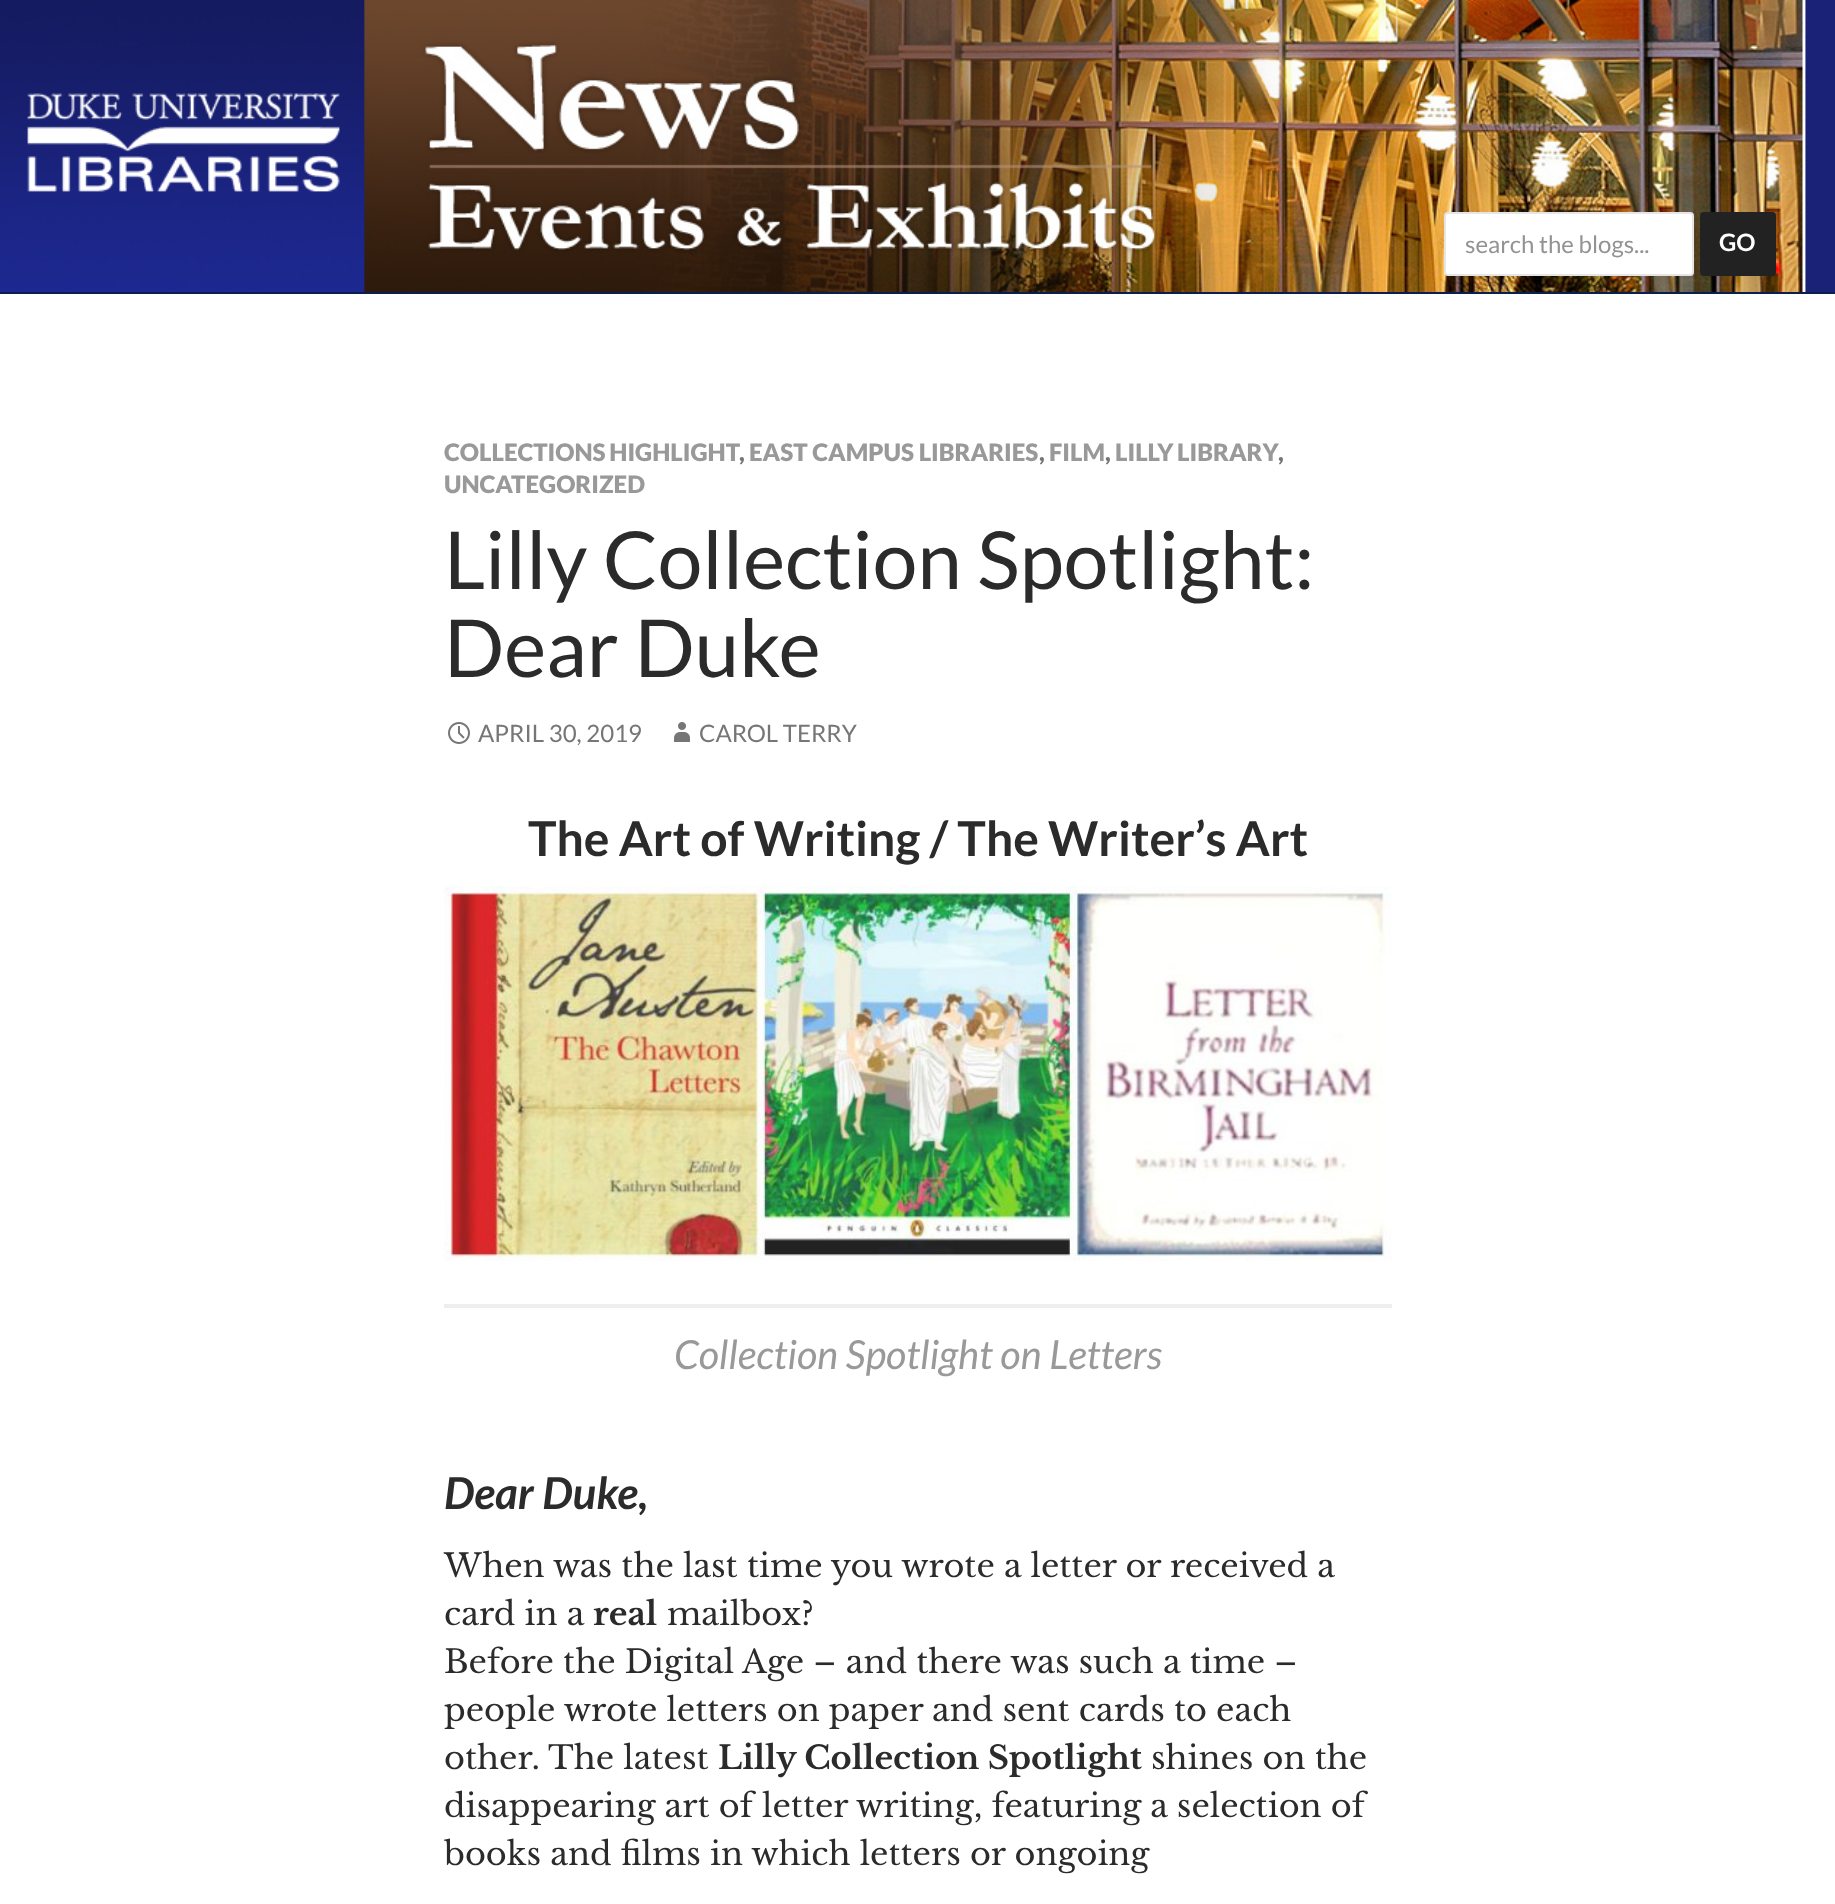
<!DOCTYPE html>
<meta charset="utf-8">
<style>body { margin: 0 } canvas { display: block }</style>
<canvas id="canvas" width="1835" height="1904"></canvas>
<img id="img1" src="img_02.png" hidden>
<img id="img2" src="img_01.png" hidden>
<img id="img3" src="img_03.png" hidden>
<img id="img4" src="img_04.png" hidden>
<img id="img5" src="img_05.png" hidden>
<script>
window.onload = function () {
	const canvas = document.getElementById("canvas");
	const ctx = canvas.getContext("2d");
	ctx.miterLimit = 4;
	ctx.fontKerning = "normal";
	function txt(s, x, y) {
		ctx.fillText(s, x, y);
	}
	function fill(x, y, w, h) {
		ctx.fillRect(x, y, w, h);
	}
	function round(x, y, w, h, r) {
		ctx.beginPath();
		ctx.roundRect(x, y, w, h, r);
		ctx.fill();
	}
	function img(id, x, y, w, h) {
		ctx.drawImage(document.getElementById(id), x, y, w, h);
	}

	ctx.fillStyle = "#FFFFFF";
	fill(0, 0, 1835, 1904);
	img("img1", 0, 0, 1835, 292);
	img("img2", 27, 93, 313, 99);
	ctx.fillStyle = "#0A1F4E";
	fill(0, 292, 1835, 2);
	ctx.fillStyle = "#FFFFFF";
	round(1444, 212, 250, 64, 4);
	ctx.beginPath();
	ctx.roundRect(1445, 213, 248, 62, 3);
	ctx.strokeStyle = "rgba(0, 0, 0, 0.1)";
	ctx.lineWidth = 2;
	ctx.stroke();
	ctx.fillStyle = "#222222";
	round(1700, 212, 76, 64, 4);
	img("img3", 448, 722, 22, 22);
	img("img4", 674, 722, 16, 20);
	img("img5", 444, 886, 948, 375);
	ctx.fillStyle = "#EEEEEE";
	fill(444, 1304, 948, 4);
	ctx.font = "24px Lato";
	ctx.fillStyle = "#939393";
	txt("search the blogs...", 1465, 253);
	ctx.font = "bold 24px Lato";
	ctx.fillStyle = "#FFFFFF";
	txt("GO", 1719, 251);
	ctx.wordSpacing = "-1px";
	ctx.font = "900 24px Lato";
	ctx.fillStyle = "#999999";
	txt("COLLECTIONS HIGHLIGHT", 444, 461);
	ctx.wordSpacing = "0px";
	ctx.fillStyle = "#767676";
	txt(",", 739, 461);
	ctx.fillStyle = "#999999";
	txt("EAST CAMPUS LIBRARIES", 749, 461);
	ctx.fillStyle = "#767676";
	txt(",", 1039, 461);
	ctx.fillStyle = "#999999";
	txt("FILM", 1049, 461);
	ctx.fillStyle = "#767676";
	txt(",", 1105, 461);
	ctx.wordSpacing = "-1px";
	ctx.fillStyle = "#999999";
	txt("LILLY LIBRARY", 1115, 461);
	ctx.wordSpacing = "0px";
	ctx.fillStyle = "#767676";
	txt(",", 1278, 461);
	ctx.fillStyle = "#999999";
	txt("UNCATEGORIZED", 444, 493);
	ctx.font = "80px Lato";
	ctx.fillStyle = "#2B2B2B";
	txt("Lilly Collection Spotlight:", 444, 589);
	txt("Dear Duke", 444, 677);
	ctx.font = "24px Lato";
	ctx.fillStyle = "#767676";
	txt("APRIL 30, 2019", 478, 742);
	txt("CAROL TERRY", 699, 742);
	ctx.font = "bold 48px Lato";
	ctx.fillStyle = "#2B2B2B";
	txt("The Art of Writing / The Writer’s Art", 528, 856);
	ctx.font = "italic 40px Lato";
	ctx.fillStyle = "#999999";
	txt("Collection Spotlight on Letters", 674, 1369);
	ctx.font = "italic bold 44px Lato";
	ctx.fillStyle = "#2B2B2B";
	txt("Dear Duke,", 444, 1509);
	ctx.font = "32px Libre Baskerville";
	txt("When was the last time you wrote a letter or received a", 444, 1577);
	txt("card in a", 444, 1625);
	ctx.font = "bold 32px Libre Baskerville";
	txt("real", 593, 1625);
	ctx.font = "32px Libre Baskerville";
	txt("mailbox?", 667, 1625);
	txt("Before the Digital Age – and there was such a time –", 444, 1673);
	txt("people wrote letters on paper and sent cards to each", 444, 1721);
	txt("other. The latest", 444, 1769);
	ctx.font = "bold 32px Libre Baskerville";
	txt("Lilly Collection Spotlight", 718, 1769);
	ctx.font = "32px Libre Baskerville";
	txt("shines on the", 1151, 1769);
	txt("disappearing art of letter writing, featuring a selection of", 444, 1817);
	txt("books and films in which letters or ongoing", 444, 1865);
};
</script>
